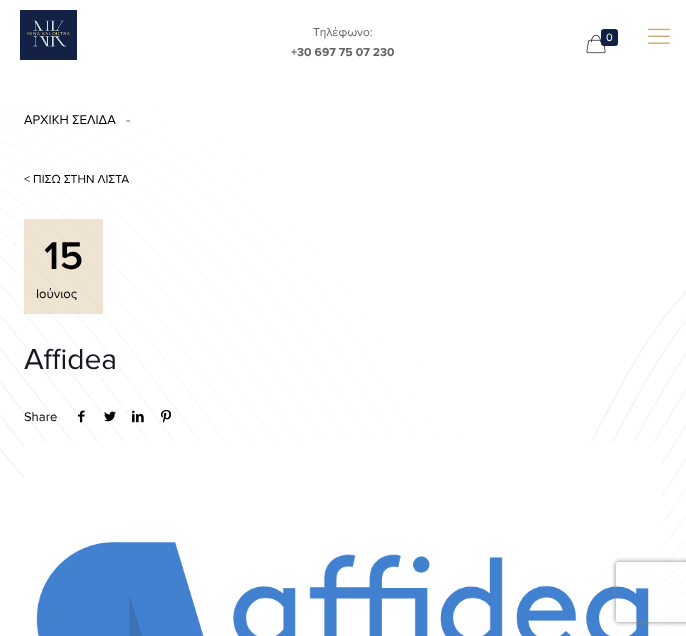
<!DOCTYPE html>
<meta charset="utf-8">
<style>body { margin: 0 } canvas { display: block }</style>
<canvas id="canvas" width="686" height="636"></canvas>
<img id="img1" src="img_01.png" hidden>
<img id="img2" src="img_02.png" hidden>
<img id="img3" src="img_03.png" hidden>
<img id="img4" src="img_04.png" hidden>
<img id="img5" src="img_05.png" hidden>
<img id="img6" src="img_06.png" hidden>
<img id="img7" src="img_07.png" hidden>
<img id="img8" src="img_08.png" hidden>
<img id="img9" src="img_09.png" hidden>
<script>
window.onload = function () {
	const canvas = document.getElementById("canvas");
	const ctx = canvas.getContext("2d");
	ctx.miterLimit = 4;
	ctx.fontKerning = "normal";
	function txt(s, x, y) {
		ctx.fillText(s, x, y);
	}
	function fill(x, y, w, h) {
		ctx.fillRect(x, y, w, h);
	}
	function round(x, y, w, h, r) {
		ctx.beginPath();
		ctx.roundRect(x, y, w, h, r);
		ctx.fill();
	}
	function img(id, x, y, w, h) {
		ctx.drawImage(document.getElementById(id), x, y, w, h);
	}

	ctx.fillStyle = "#FFFFFF";
	fill(0, 0, 686, 636);
	img("img1", 20, 10, 57, 50);
	img("img2", 648, 28, 22, 16);
	img("img3", 586, 34, 20, 20);
	ctx.fillStyle = "#112145";
	round(601, 29, 17, 17, 3);
	img("img4", 0, 106, 686, 530);
	ctx.fillStyle = "rgba(202, 172, 115, 0.33)";
	fill(24, 219, 79, 95);
	img("img5", 78, 410, 7, 13);
	img("img6", 104, 411, 12, 11);
	img("img7", 132, 410, 12, 13);
	img("img8", 161, 409, 11, 14);
	img("img9", 24, 442, 638, 194);
	ctx.save();
	ctx.beginPath();
	ctx.moveTo(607, 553);
	ctx.lineTo(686, 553);
	ctx.lineTo(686, 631);
	ctx.lineTo(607, 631);
	ctx.closePath();
	ctx.moveTo(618, 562);
	ctx.lineTo(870, 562);
	ctx.bezierCurveTo(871, 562, 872, 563, 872, 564);
	ctx.lineTo(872, 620);
	ctx.bezierCurveTo(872, 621, 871, 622, 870, 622);
	ctx.lineTo(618, 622);
	ctx.bezierCurveTo(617, 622, 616, 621, 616, 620);
	ctx.lineTo(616, 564);
	ctx.bezierCurveTo(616, 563, 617, 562, 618, 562);
	ctx.closePath();
	ctx.clip("evenodd");
	ctx.fillStyle = "#808080";
	ctx.filter = "blur(2.5px)";
	ctx.beginPath();
	ctx.roundRect(616, 562, 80, 60, 2);
	ctx.fill();
	ctx.filter = "none";
	ctx.restore();
	ctx.font = "12px Proxima Nova";
	ctx.fillStyle = "#626262";
	txt("Τηλέφωνο:", 313, 36);
	ctx.font = "bold 12px Proxima Nova";
	txt("+30 697 75 07 230", 291, 56);
	ctx.font = "11px Proxima Nova";
	ctx.fillStyle = "#FFFFFF";
	txt("0", 606, 41);
	ctx.font = "13px Proxima Nova";
	ctx.fillStyle = "#000000";
	txt("ΑΡΧΙΚΗ ΣΕΛΙΔΑ", 24, 124);
	ctx.font = "13px Liberation Serif";
	ctx.fillStyle = "#626262";
	txt("-", 126, 124);
	ctx.font = "12px Proxima Nova";
	ctx.fillStyle = "#000000";
	txt("< ΠΙΣΩ ΣΤΗΝ ΛΙΣΤΑ", 24, 183);
	ctx.font = "600 40px Proxima Nova";
	txt("15", 44, 269);
	ctx.font = "13px Proxima Nova";
	txt("Ιούνιος", 36, 298);
	ctx.font = "30px Proxima Nova";
	ctx.fillStyle = "#161922";
	txt("Affidea", 24, 369);
	ctx.font = "13px Proxima Nova";
	ctx.fillStyle = "#000000";
	txt("Share", 24, 421);
};
</script>
